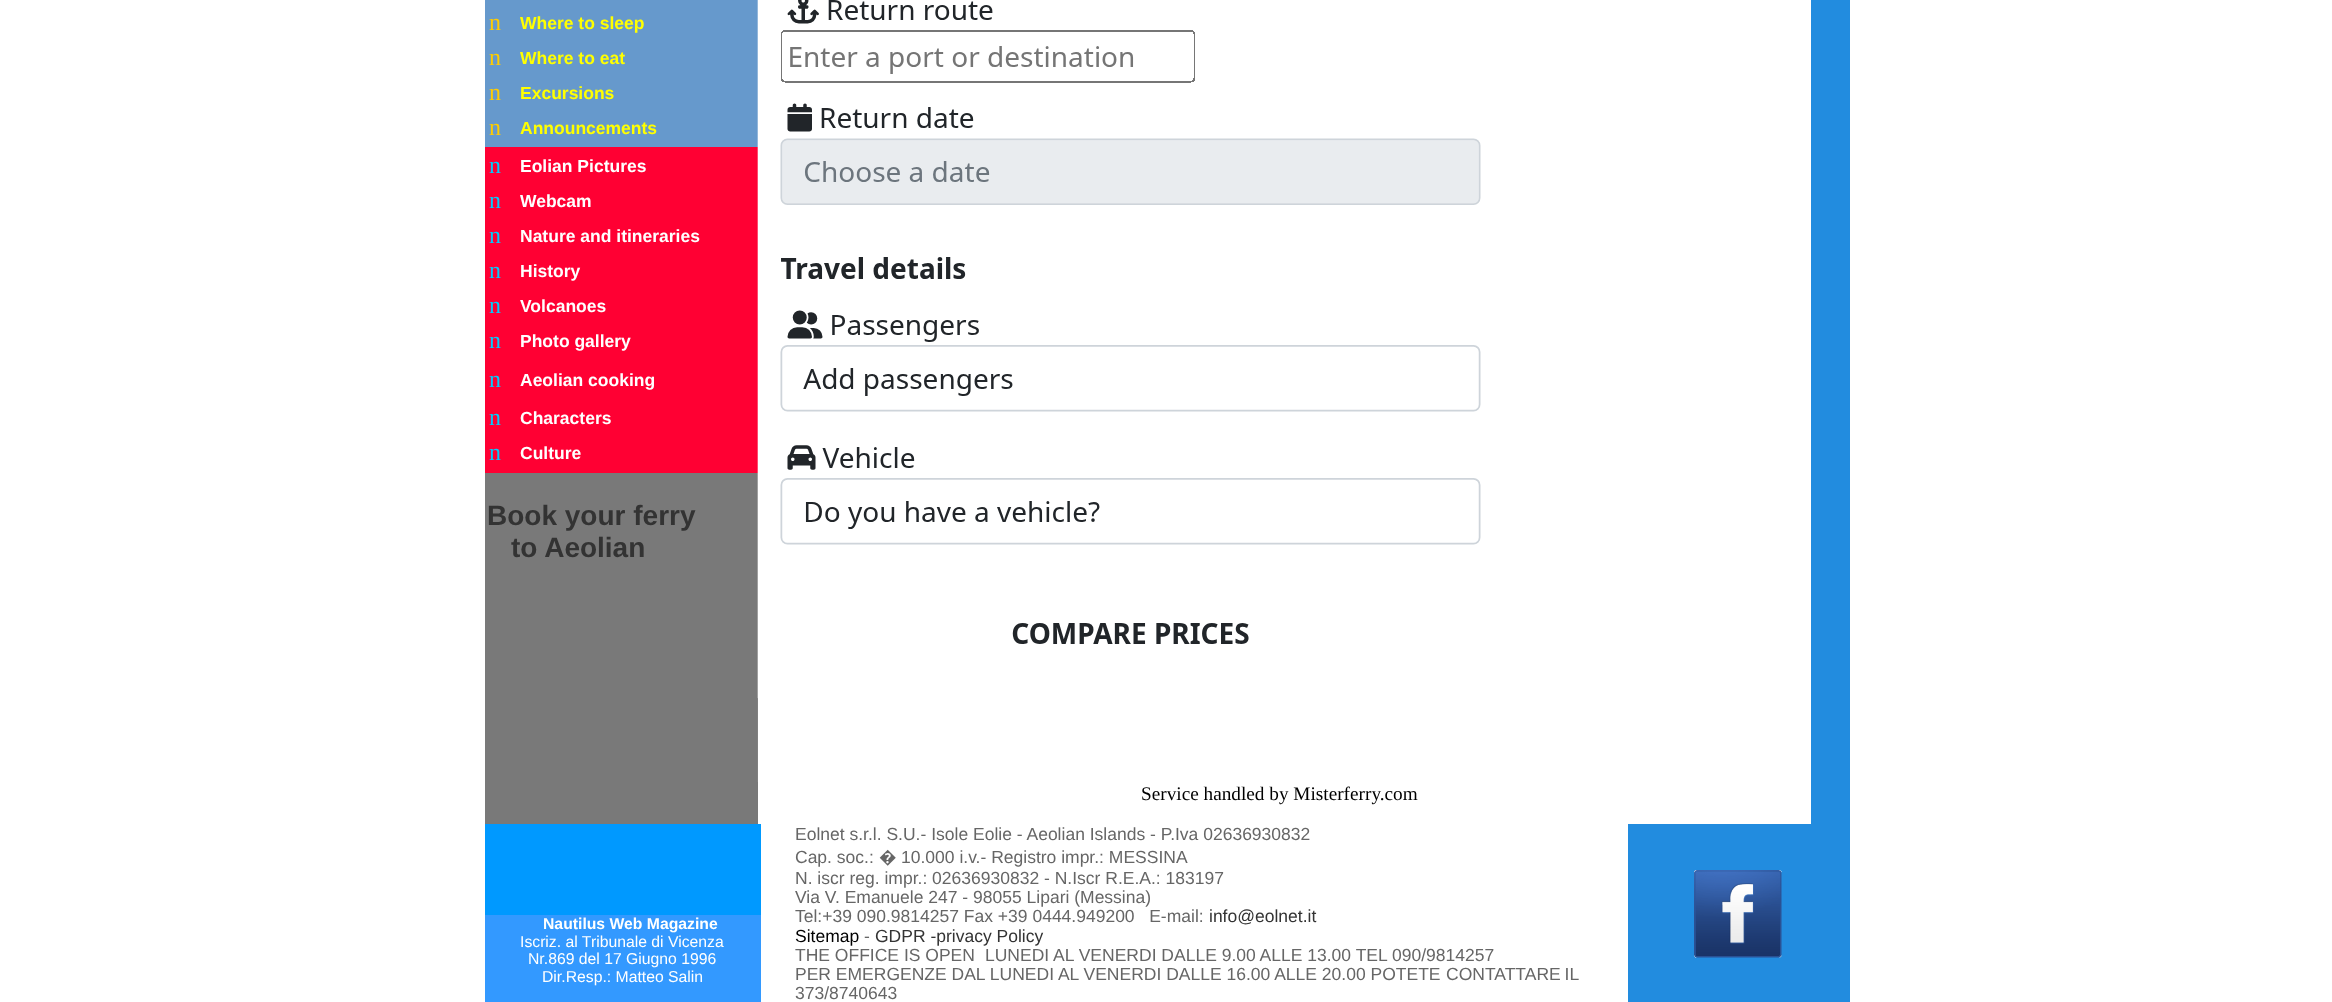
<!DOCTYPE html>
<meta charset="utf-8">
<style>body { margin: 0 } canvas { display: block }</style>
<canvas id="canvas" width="2332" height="1002"></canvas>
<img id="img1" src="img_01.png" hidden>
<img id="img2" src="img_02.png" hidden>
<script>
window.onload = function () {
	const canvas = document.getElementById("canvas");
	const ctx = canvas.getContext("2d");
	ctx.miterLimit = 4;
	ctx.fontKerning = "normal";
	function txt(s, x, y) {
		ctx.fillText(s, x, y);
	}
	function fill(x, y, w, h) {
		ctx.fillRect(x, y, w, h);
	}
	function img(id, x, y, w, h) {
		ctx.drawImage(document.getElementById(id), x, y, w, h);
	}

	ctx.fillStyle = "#FFFFFF";
	fill(0, 0, 2332, 1002);
	ctx.fillStyle = "#797979";
	fill(485, 473, 273, 351);
	ctx.fillStyle = "#6699CC";
	fill(485, 0, 273, 147);
	ctx.fillStyle = "#FF0033";
	fill(485, 147, 273, 326);
	ctx.fillStyle = "#228CDF";
	fill(1811, 0, 39, 824);
	img("img1", 757, 0, 724, 782);
	ctx.fillStyle = "#0099FF";
	fill(485, 824, 276, 91);
	ctx.fillStyle = "#3399FF";
	fill(485, 915, 276, 87);
	ctx.fillStyle = "#228CDF";
	fill(1628, 824, 222, 178);
	img("img2", 1694, 870, 88, 88);
	ctx.font = "24px Liberation Serif";
	ctx.fillStyle = "#FFCC00";
	txt("n", 489, 30);
	ctx.font = "bold 17.5px Liberation Sans";
	ctx.fillStyle = "#FFFF00";
	txt("Where to sleep", 520, 29);
	ctx.font = "24px Liberation Serif";
	ctx.fillStyle = "#FFCC00";
	txt("n", 489, 65);
	ctx.font = "bold 17.5px Liberation Sans";
	ctx.fillStyle = "#FFFF00";
	txt("Where to eat", 520, 64);
	ctx.font = "24px Liberation Serif";
	ctx.fillStyle = "#FFCC00";
	txt("n", 489, 100);
	ctx.font = "bold 17.5px Liberation Sans";
	ctx.fillStyle = "#FFFF00";
	txt("Excursions", 520, 99);
	ctx.font = "24px Liberation Serif";
	ctx.fillStyle = "#FFCC00";
	txt("n", 489, 135);
	ctx.font = "bold 17.5px Liberation Sans";
	ctx.fillStyle = "#FFFF00";
	txt("Announcements", 520, 134);
	ctx.font = "24px Liberation Serif";
	ctx.fillStyle = "#00CCFF";
	txt("n", 489, 173);
	ctx.font = "bold 17.5px Liberation Sans";
	ctx.fillStyle = "#FFFFFF";
	txt("Eolian Pictures", 520, 172);
	ctx.font = "24px Liberation Serif";
	ctx.fillStyle = "#00CCFF";
	txt("n", 489, 208);
	ctx.font = "bold 17.5px Liberation Sans";
	ctx.fillStyle = "#FFFFFF";
	txt("Webcam", 520, 207);
	ctx.font = "24px Liberation Serif";
	ctx.fillStyle = "#00CCFF";
	txt("n", 489, 243);
	ctx.font = "bold 17.5px Liberation Sans";
	ctx.fillStyle = "#FFFFFF";
	txt("Nature and itineraries", 520, 242);
	ctx.font = "24px Liberation Serif";
	ctx.fillStyle = "#00CCFF";
	txt("n", 489, 278);
	ctx.font = "bold 17.5px Liberation Sans";
	ctx.fillStyle = "#FFFFFF";
	txt("History", 520, 277);
	ctx.font = "24px Liberation Serif";
	ctx.fillStyle = "#00CCFF";
	txt("n", 489, 313);
	ctx.font = "bold 17.5px Liberation Sans";
	ctx.fillStyle = "#FFFFFF";
	txt("Volcanoes", 520, 312);
	ctx.font = "24px Liberation Serif";
	ctx.fillStyle = "#00CCFF";
	txt("n", 489, 348);
	ctx.font = "bold 17.5px Liberation Sans";
	ctx.fillStyle = "#FFFFFF";
	txt("Photo gallery", 520, 347);
	ctx.font = "24px Liberation Serif";
	ctx.fillStyle = "#00CCFF";
	txt("n", 489, 387);
	ctx.font = "bold 17.5px Liberation Sans";
	ctx.fillStyle = "#FFFFFF";
	txt("Aeolian cooking", 520, 386);
	ctx.font = "24px Liberation Serif";
	ctx.fillStyle = "#00CCFF";
	txt("n", 489, 425);
	ctx.font = "bold 17.5px Liberation Sans";
	ctx.fillStyle = "#FFFFFF";
	txt("Characters", 520, 424);
	ctx.font = "24px Liberation Serif";
	ctx.fillStyle = "#00CCFF";
	txt("n", 489, 460);
	ctx.font = "bold 17.5px Liberation Sans";
	ctx.fillStyle = "#FFFFFF";
	txt("Culture", 520, 459);
	ctx.font = "bold 28px Liberation Sans";
	ctx.fillStyle = "#333333";
	txt("Book your ferry", 487, 525);
	txt("to Aeolian", 511, 557);
	ctx.font = "19.25px Liberation Serif";
	ctx.fillStyle = "#000000";
	txt("Service handled by Misterferry.com", 1141, 800);
	ctx.font = "bold 15.75px Liberation Sans";
	ctx.fillStyle = "#FFFFFF";
	txt("Nautilus Web Magazine", 543, 929);
	ctx.font = "15.75px Liberation Sans";
	txt("Iscriz. al Tribunale di Vicenza", 520, 947);
	txt("Nr.869 del 17 Giugno 1996", 528, 964);
	txt("Dir.Resp.: Matteo Salin", 542, 982);
	ctx.font = "17.5px Liberation Sans";
	ctx.fillStyle = "#666666";
	txt("Eolnet s.r.l. S.U.- Isole Eolie - Aeolian Islands - P.Iva 02636930832", 795, 840);
	txt("Cap. soc.:", 795, 863);
	ctx.font = "17.5px Noto Sans";
	txt("�", 879, 863);
	ctx.font = "17.5px Liberation Sans";
	txt("10.000 i.v.- Registro impr.: MESSINA", 901, 863);
	txt("N. iscr reg. impr.: 02636930832 - N.Iscr R.E.A.: 183197", 795, 884);
	txt("Via V. Emanuele 247 - 98055 Lipari (Messina)", 795, 903);
	txt("Tel:+39 090.9814257 Fax +39 0444.949200   E-mail:", 795, 922);
	ctx.fillStyle = "#333333";
	txt("info@eolnet.it", 1209, 922);
	ctx.fillStyle = "#000000";
	txt("Sitemap", 795, 942);
	ctx.fillStyle = "#666666";
	txt("-", 864, 942);
	ctx.fillStyle = "#333333";
	txt("GDPR -privacy Policy", 875, 942);
	ctx.fillStyle = "#666666";
	txt("THE OFFICE IS OPEN", 795, 961);
	txt("LUNEDI AL VENERDI DALLE 9.00 ALLE 13.00 TEL 090/9814257", 985, 961);
	txt("PER EMERGENZE DAL LUNEDI AL VENERDI DALLE 16.00 ALLE 20.00 POTETE", 795, 980);
	ctx.wordSpacing = "-1px";
	txt("CONTATTARE IL", 1446, 980);
	ctx.wordSpacing = "0px";
	txt("373/8740643", 795, 999);
};
</script>
